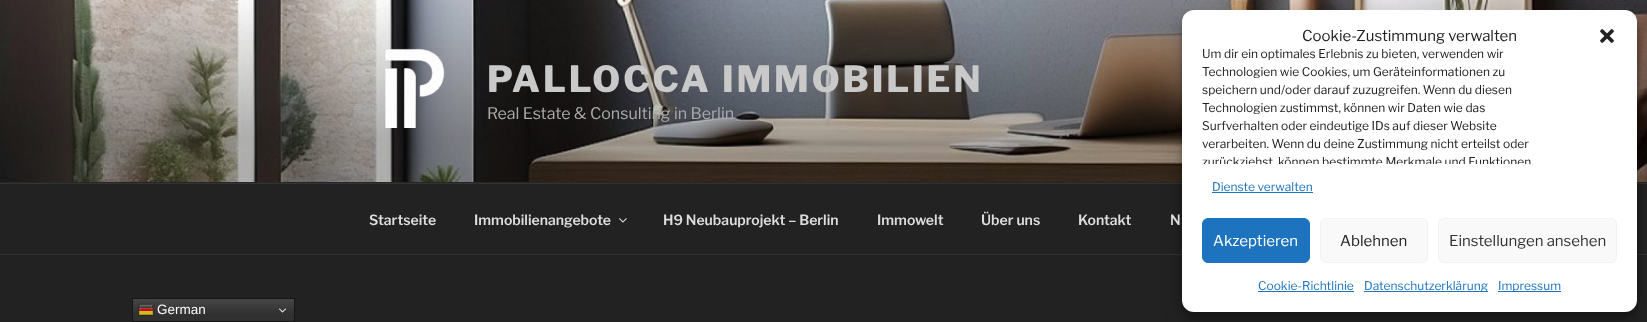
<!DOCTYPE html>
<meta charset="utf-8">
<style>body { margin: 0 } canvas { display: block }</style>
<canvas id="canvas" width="1647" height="322"></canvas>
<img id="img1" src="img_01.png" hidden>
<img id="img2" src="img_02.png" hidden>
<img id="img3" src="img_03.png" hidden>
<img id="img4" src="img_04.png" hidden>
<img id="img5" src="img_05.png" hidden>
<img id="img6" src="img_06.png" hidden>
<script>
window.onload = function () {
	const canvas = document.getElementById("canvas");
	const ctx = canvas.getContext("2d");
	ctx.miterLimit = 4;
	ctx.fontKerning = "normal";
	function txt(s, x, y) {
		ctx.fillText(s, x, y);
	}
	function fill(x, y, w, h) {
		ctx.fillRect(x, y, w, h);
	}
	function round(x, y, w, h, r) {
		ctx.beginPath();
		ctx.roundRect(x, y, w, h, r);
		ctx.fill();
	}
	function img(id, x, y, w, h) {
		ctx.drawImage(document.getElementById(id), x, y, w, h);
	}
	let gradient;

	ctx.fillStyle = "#222222";
	fill(0, 0, 1647, 322);
	ctx.fillStyle = "#262626";
	fill(0, 182, 1647, 1);
	img("img1", 0, 0, 1647, 182);
	img("img2", 385, 48, 60, 80);
	ctx.fillStyle = "#333333";
	fill(0, 183, 1647, 1);
	fill(0, 254, 1647, 1);
	img("img3", 619, 218, 8, 5);
	ctx.fillStyle = "rgba(0, 0, 0, 0.23)";
	ctx.filter = "blur(3px)";
	ctx.beginPath();
	ctx.roundRect(1182, 16, 455, 302, 12);
	ctx.fill();
	ctx.filter = "none";
	ctx.fillStyle = "rgba(0, 0, 0, 0.19)";
	ctx.filter = "blur(10px)";
	ctx.beginPath();
	ctx.roundRect(1182, 20, 455, 302, 12);
	ctx.fill();
	ctx.filter = "none";
	ctx.fillStyle = "#FFFFFF";
	round(1182, 10, 455, 302, 12);
	img("img4", 1600, 29, 14, 14);
	ctx.fillStyle = "#1E73BE";
	fill(1212, 192, 101, 1);
	ctx.beginPath();
	ctx.roundRect(1202.5, 218.5, 107, 44, 5.5);
	ctx.fill();
	ctx.strokeStyle = "#1E73BE";
	ctx.stroke();
	ctx.fillStyle = "#F9F9F9";
	ctx.beginPath();
	ctx.roundRect(1320.5, 218.5, 107, 44, 5.5);
	ctx.fill();
	ctx.strokeStyle = "#F2F2F2";
	ctx.stroke();
	ctx.beginPath();
	ctx.roundRect(1438.5, 218.5, 178, 44, 5.5);
	ctx.fill();
	ctx.stroke();
	ctx.fillStyle = "#1E73BE";
	fill(1258, 291, 96, 1);
	fill(1364, 291, 124, 1);
	fill(1498, 291, 63, 1);
	gradient = ctx.createLinearGradient(214, 298, 214, 322);
	gradient.addColorStop(0, "#474747");
	gradient.addColorStop(0.7, "#303030");
	ctx.fillStyle = gradient;
	fill(133, 299, 161, 22);
	ctx.strokeStyle = "#161616";
	ctx.strokeRect(132.5, 298.5, 162, 23);
	img("img5", 138, 303, 16, 13);
	img("img6", 279, 308, 7, 5);
	ctx.letterSpacing = "2.9px";
	ctx.font = "100 36px Libre Franklin";
	ctx.fillStyle = "#C9C9C9";
	txt("PALLOCCA IMMOBILIEN", 487, 92);
	ctx.letterSpacing = "0px";
	ctx.font = "100 16px 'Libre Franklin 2'";
	ctx.fillStyle = "#AAAAAA";
	txt("Real Estate & Consulting in Berlin", 487, 119);
	ctx.font = "100 14px 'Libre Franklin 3'";
	ctx.fillStyle = "#DDDDDD";
	txt("Startseite", 369, 225);
	txt("Immobilienangebote", 474, 225);
	txt("H9 Neubauprojekt – Berlin", 663, 225);
	txt("Immowelt", 877, 225);
	txt("Über uns", 981, 225);
	txt("Kontakt", 1078, 225);
	txt("N", 1170, 225);
	ctx.font = "100 15px 'Libre Franklin 2'";
	ctx.fillStyle = "#222222";
	txt("Cookie-Zustimmung verwalten", 1302, 41);
	ctx.font = "100 12px 'Libre Franklin 2'";
	txt("Um dir ein optimales Erlebnis zu bieten, verwenden wir", 1202, 58);
	txt("Technologien wie Cookies, um Geräteinformationen zu", 1202, 76);
	txt("speichern und/oder darauf zuzugreifen. Wenn du diesen", 1202, 94);
	txt("Technologien zustimmst, können wir Daten wie das", 1202, 112);
	txt("Surfverhalten oder eindeutige IDs auf dieser Website", 1202, 130);
	txt("verarbeiten. Wenn du deine Zustimmung nicht erteilst oder", 1202, 148);
	ctx.save();
	ctx.beginPath();
	ctx.rect(1202, 45, 415, 119);
	ctx.clip();
	txt("zurückziehst, können bestimmte Merkmale und Funktionen", 1202, 166);
	ctx.restore();
	ctx.fillStyle = "#1E73BE";
	txt("Dienste verwalten", 1212, 191);
	ctx.font = "100 15px 'Libre Franklin 2'";
	ctx.fillStyle = "#FFFFFF";
	txt("Akzeptieren", 1213, 246);
	ctx.fillStyle = "#222222";
	txt("Ablehnen", 1340, 246);
	ctx.fillStyle = "#333333";
	txt("Einstellungen ansehen", 1449, 246);
	ctx.font = "100 12px 'Libre Franklin 2'";
	ctx.fillStyle = "#1E73BE";
	txt("Cookie-Richtlinie", 1258, 290);
	txt("Datenschutzerklärung", 1364, 290);
	txt("Impressum", 1498, 290);
	ctx.font = "13.5px Liberation Sans";
	ctx.fillStyle = "#F7F7F7";
	txt("German", 157, 314);
};
</script>
